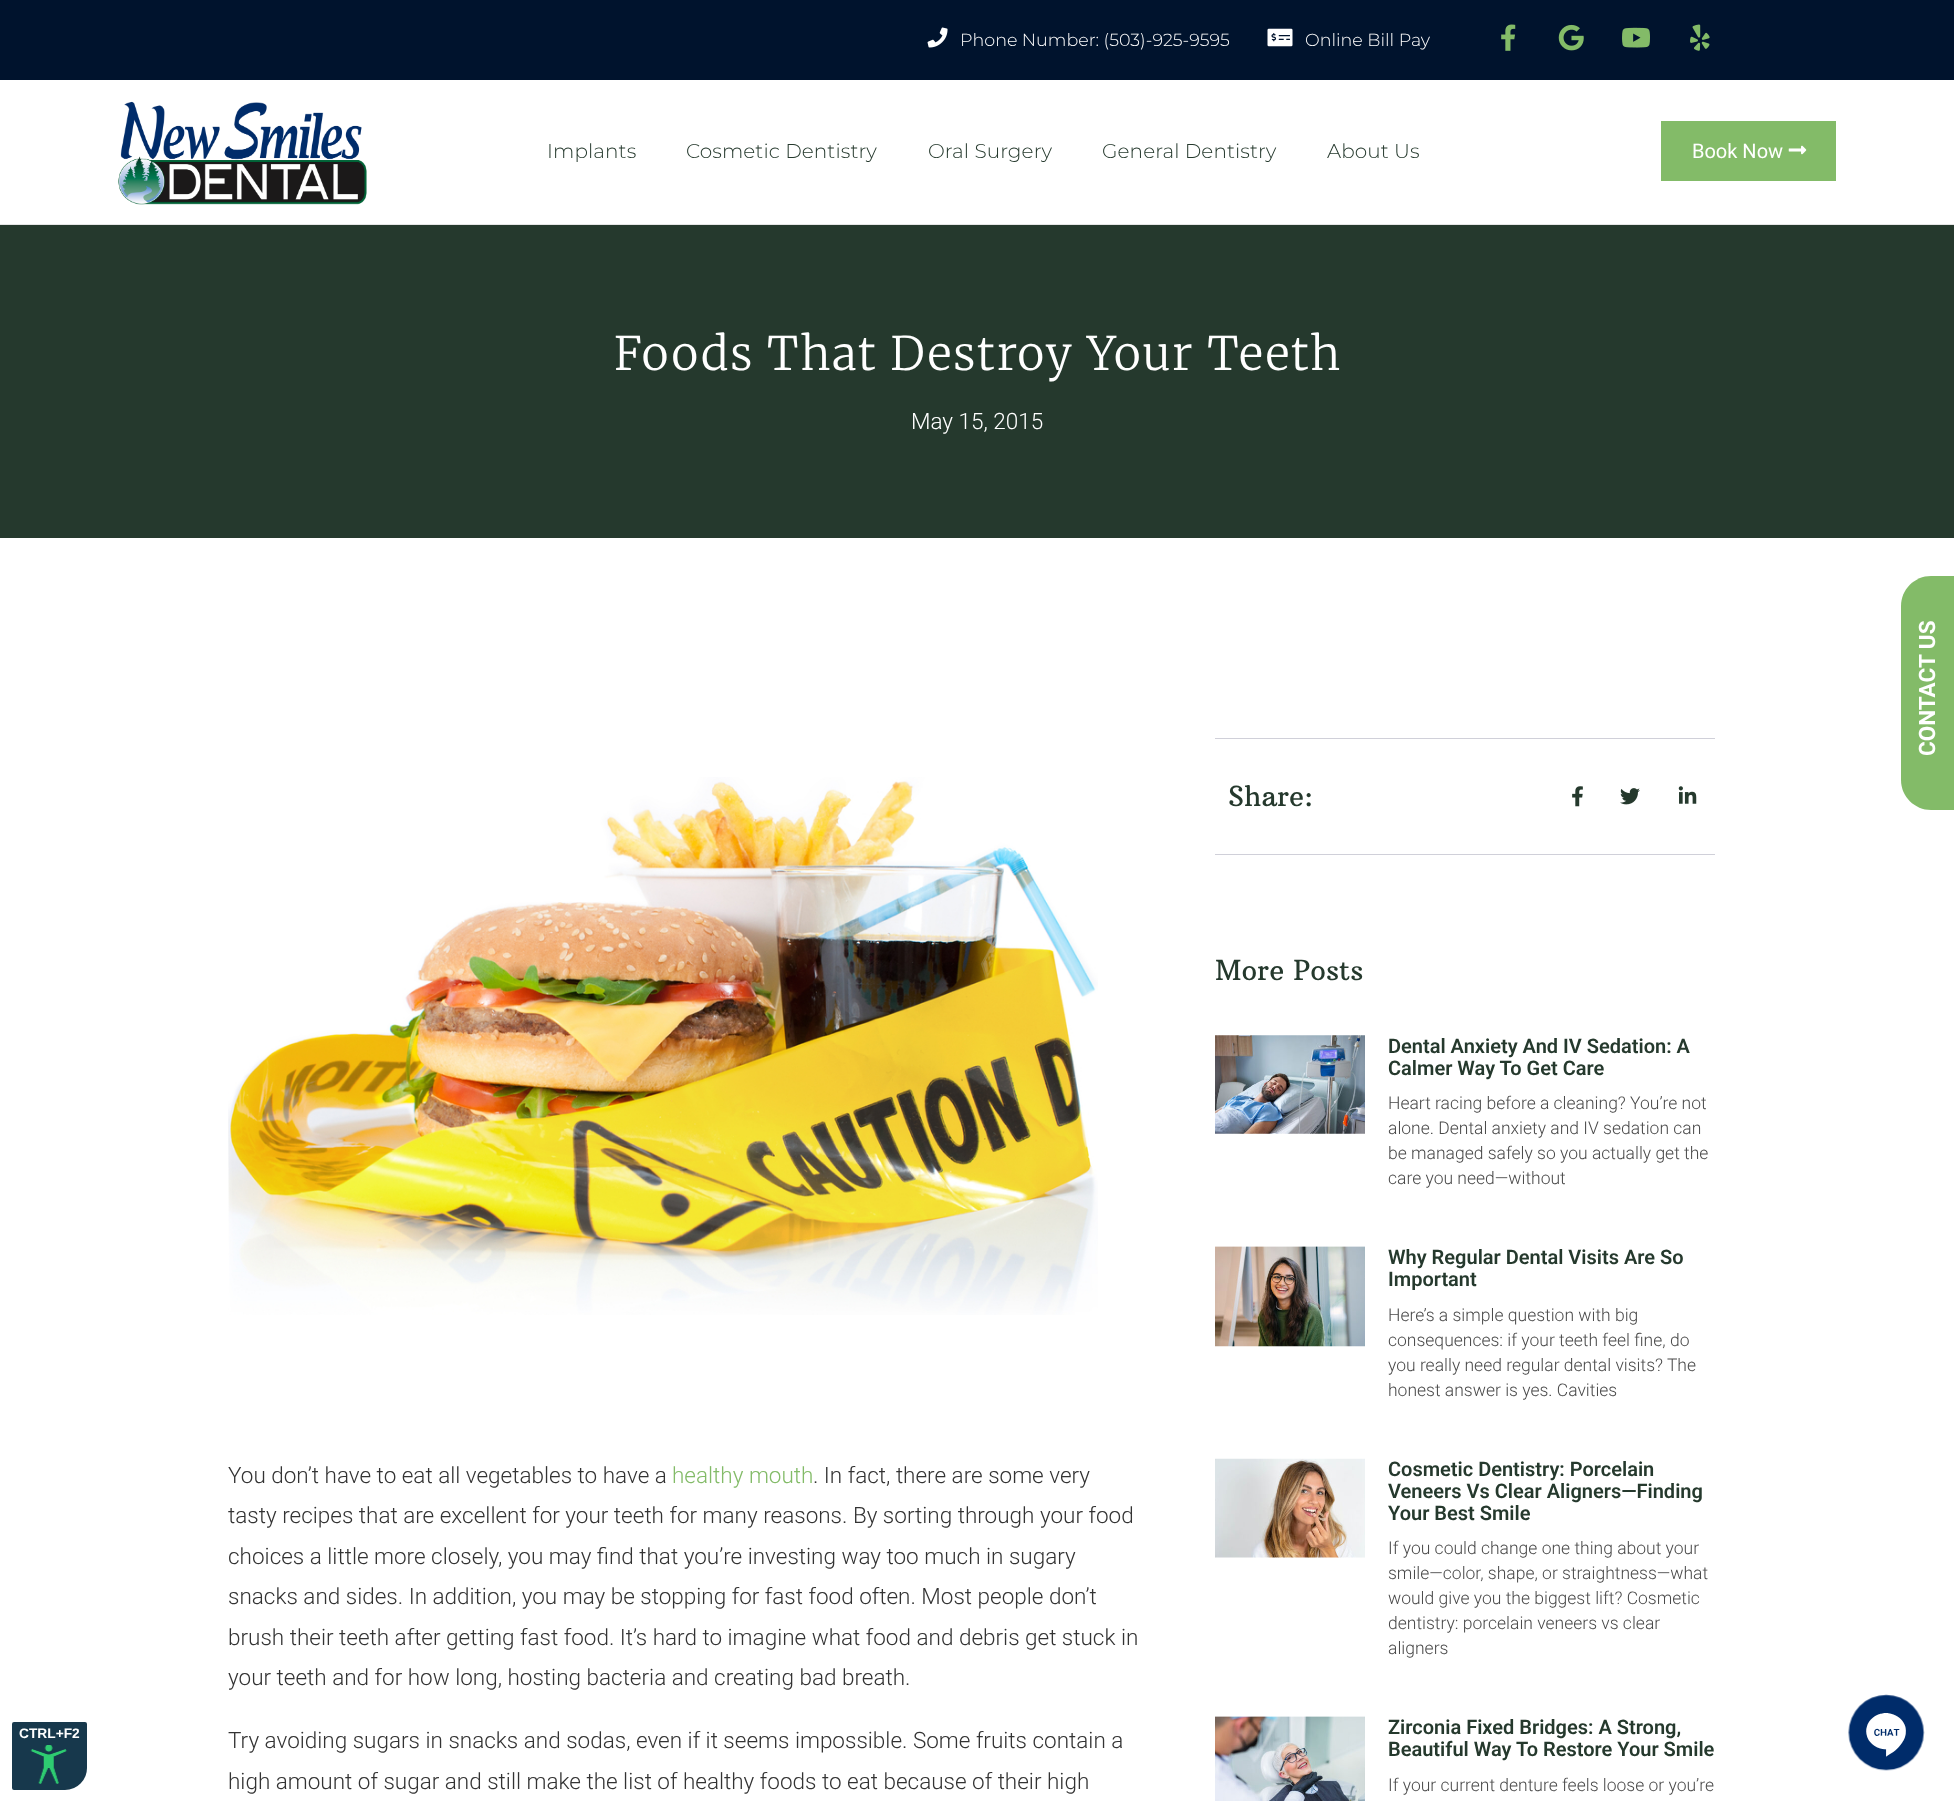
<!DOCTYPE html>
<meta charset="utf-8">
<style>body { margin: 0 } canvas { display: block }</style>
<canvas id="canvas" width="1954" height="1801"></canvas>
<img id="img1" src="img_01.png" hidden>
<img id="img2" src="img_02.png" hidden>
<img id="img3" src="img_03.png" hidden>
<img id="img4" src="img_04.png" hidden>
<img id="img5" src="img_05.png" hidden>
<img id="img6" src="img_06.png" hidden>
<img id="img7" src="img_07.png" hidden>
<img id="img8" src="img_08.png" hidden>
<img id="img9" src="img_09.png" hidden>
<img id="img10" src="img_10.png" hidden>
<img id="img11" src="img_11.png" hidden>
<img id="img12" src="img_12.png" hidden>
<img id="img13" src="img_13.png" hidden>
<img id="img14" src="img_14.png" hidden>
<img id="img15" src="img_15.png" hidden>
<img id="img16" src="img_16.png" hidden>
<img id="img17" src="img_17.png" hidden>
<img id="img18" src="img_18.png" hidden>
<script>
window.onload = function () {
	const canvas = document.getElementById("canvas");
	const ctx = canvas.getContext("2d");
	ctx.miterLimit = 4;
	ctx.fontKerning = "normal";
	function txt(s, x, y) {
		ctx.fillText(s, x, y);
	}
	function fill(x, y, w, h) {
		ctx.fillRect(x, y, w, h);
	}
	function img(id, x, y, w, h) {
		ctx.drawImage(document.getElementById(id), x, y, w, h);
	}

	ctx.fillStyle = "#FFFFFF";
	fill(0, 0, 1954, 1801);
	ctx.fillStyle = "#00132D";
	fill(0, 0, 1954, 80);
	img("img1", 927, 27, 21, 21);
	img("img2", 1267, 28, 26, 19);
	img("img3", 1501, 24, 15, 27);
	img("img4", 1558, 24, 26, 27);
	img("img5", 1622, 27, 28, 21);
	img("img6", 1690, 24, 20, 27);
	ctx.fillStyle = "#E5E5E5";
	fill(0, 224, 1954, 1);
	img("img7", 118, 101, 249, 104);
	ctx.fillStyle = "#83BB68";
	fill(1661, 121, 175, 60);
	img("img8", 1788, 145, 19, 10);
	ctx.fillStyle = "#25392D";
	fill(0, 225, 1954, 313);
	img("img9", 228, 777, 870, 538);
	ctx.fillStyle = "#D0D0D9";
	fill(1215, 738, 500, 1);
	fill(1215, 854, 500, 1);
	img("img10", 1572, 786, 11, 21);
	img("img11", 1620, 788, 20, 17);
	img("img12", 1678, 786, 19, 18);
	img("img13", 1215, 1035, 150, 99);
	img("img14", 1215, 1246, 150, 101);
	img("img15", 1215, 1458, 150, 100);
	img("img16", 1215, 1716, 150, 85);
	ctx.fillStyle = "#83BB68";
	ctx.beginPath();
	ctx.moveTo(1931, 576);
	ctx.lineTo(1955, 576);
	ctx.lineTo(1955, 810);
	ctx.lineTo(1931, 810);
	ctx.bezierCurveTo(1914.5, 810, 1901, 796.5, 1901, 780);
	ctx.lineTo(1901, 606);
	ctx.bezierCurveTo(1901, 589.5, 1914.5, 576, 1931, 576);
	ctx.closePath();
	ctx.fill();
	ctx.fillStyle = "#17384C";
	ctx.beginPath();
	ctx.roundRect(10.5, 1720.5, 78, 71, [3.5, 3.5, 23.5, 3.5]);
	ctx.fill();
	ctx.strokeStyle = "#FFFFFF";
	ctx.lineWidth = 3;
	ctx.stroke();
	img("img17", 30, 1745, 37, 39);
	img("img18", 1848, 1694, 77, 77);
	ctx.font = "300 17.5px Montserrat";
	ctx.fillStyle = "#FFFFFF";
	txt("Phone Number: (503)-925-9595", 960, 46);
	txt("Online Bill Pay", 1305, 46);
	ctx.letterSpacing = "0.1px";
	ctx.font = "300 20px Montserrat";
	ctx.fillStyle = "#25392D";
	txt("Implants", 547, 158);
	txt("Cosmetic Dentistry", 686, 158);
	txt("Oral Surgery", 928, 158);
	txt("General Dentistry", 1102, 158);
	txt("About Us", 1327, 158);
	ctx.letterSpacing = "0px";
	ctx.font = "20px Roboto";
	ctx.fillStyle = "#FFFFFF";
	txt("Book Now", 1692, 158);
	ctx.letterSpacing = "1.9px";
	ctx.font = "300 46px Merriweather";
	txt("Foods That Destroy Your Teeth", 614, 370);
	ctx.letterSpacing = "0px";
	ctx.font = "300 22.5px Roboto";
	txt("May 15, 2015", 911, 429);
	ctx.fillStyle = "#333333";
	txt("You don’t have to eat all vegetables to have a", 228, 1483);
	ctx.fillStyle = "#83BB68";
	txt("healthy mouth", 672, 1483);
	ctx.fillStyle = "#333333";
	txt(". In fact, there are some very", 813, 1483);
	txt("tasty recipes that are excellent for your teeth for many reasons. By sorting through your food", 228, 1523);
	txt("choices a little more closely, you may find that you’re investing way too much in sugary", 228, 1564);
	txt("snacks and sides. In addition, you may be stopping for fast food often. Most people don’t", 228, 1604);
	txt("brush their teeth after getting fast food. It’s hard to imagine what food and debris get stuck in", 228, 1645);
	txt("your teeth and for how long, hosting bacteria and creating bad breath.", 228, 1685);
	txt("Try avoiding sugars in snacks and sodas, even if it seems impossible. Some fruits contain a", 228, 1748);
	txt("high amount of sugar and still make the list of healthy foods to eat because of their high", 228, 1789);
	ctx.font = "27.5px Arbutus Slab";
	ctx.fillStyle = "#25392D";
	txt("Share:", 1228, 806);
	txt("More Posts", 1215, 980);
	ctx.font = "600 20px Roboto";
	txt("Dental Anxiety And IV Sedation: A", 1388, 1053);
	txt("Calmer Way To Get Care", 1388, 1075);
	ctx.font = "300 17.5px Roboto";
	ctx.fillStyle = "#4A4A4A";
	txt("Heart racing before a cleaning? You’re not", 1388, 1109);
	txt("alone. Dental anxiety and IV sedation can", 1388, 1134);
	txt("be managed safely so you actually get the", 1388, 1159);
	txt("care you need—without", 1388, 1184);
	ctx.font = "600 20px Roboto";
	ctx.fillStyle = "#25392D";
	txt("Why Regular Dental Visits Are So", 1388, 1264);
	txt("Important", 1388, 1286);
	ctx.font = "300 17.5px Roboto";
	ctx.fillStyle = "#4A4A4A";
	txt("Here’s a simple question with big", 1388, 1321);
	txt("consequences: if your teeth feel fine, do", 1388, 1346);
	txt("you really need regular dental visits? The", 1388, 1371);
	txt("honest answer is yes. Cavities", 1388, 1396);
	ctx.font = "600 20px Roboto";
	ctx.fillStyle = "#25392D";
	txt("Cosmetic Dentistry: Porcelain", 1388, 1476);
	txt("Veneers Vs Clear Aligners—Finding", 1388, 1498);
	txt("Your Best Smile", 1388, 1520);
	ctx.font = "300 17.5px Roboto";
	ctx.fillStyle = "#4A4A4A";
	txt("If you could change one thing about your", 1388, 1554);
	txt("smile—color, shape, or straightness—what", 1388, 1579);
	txt("would give you the biggest lift? Cosmetic", 1388, 1604);
	txt("dentistry: porcelain veneers vs clear", 1388, 1629);
	txt("aligners", 1388, 1654);
	ctx.font = "600 20px Roboto";
	ctx.fillStyle = "#25392D";
	txt("Zirconia Fixed Bridges: A Strong,", 1388, 1734);
	txt("Beautiful Way To Restore Your Smile", 1388, 1756);
	ctx.font = "300 17.5px Roboto";
	ctx.fillStyle = "#4A4A4A";
	txt("If your current denture feels loose or you’re", 1388, 1791);
	ctx.font = "bold 22.5px Roboto";
	ctx.fillStyle = "#FFFFFF";
	ctx.save();
	ctx.translate(1935, 756);
	ctx.rotate(-90 * Math.PI / 180);
	ctx.fillText("CONTACT US", 0, 0);
	ctx.restore();
	ctx.font = "bold 13.75px Liberation Sans";
	txt("CTRL+F2", 19, 1738);
};
</script>
